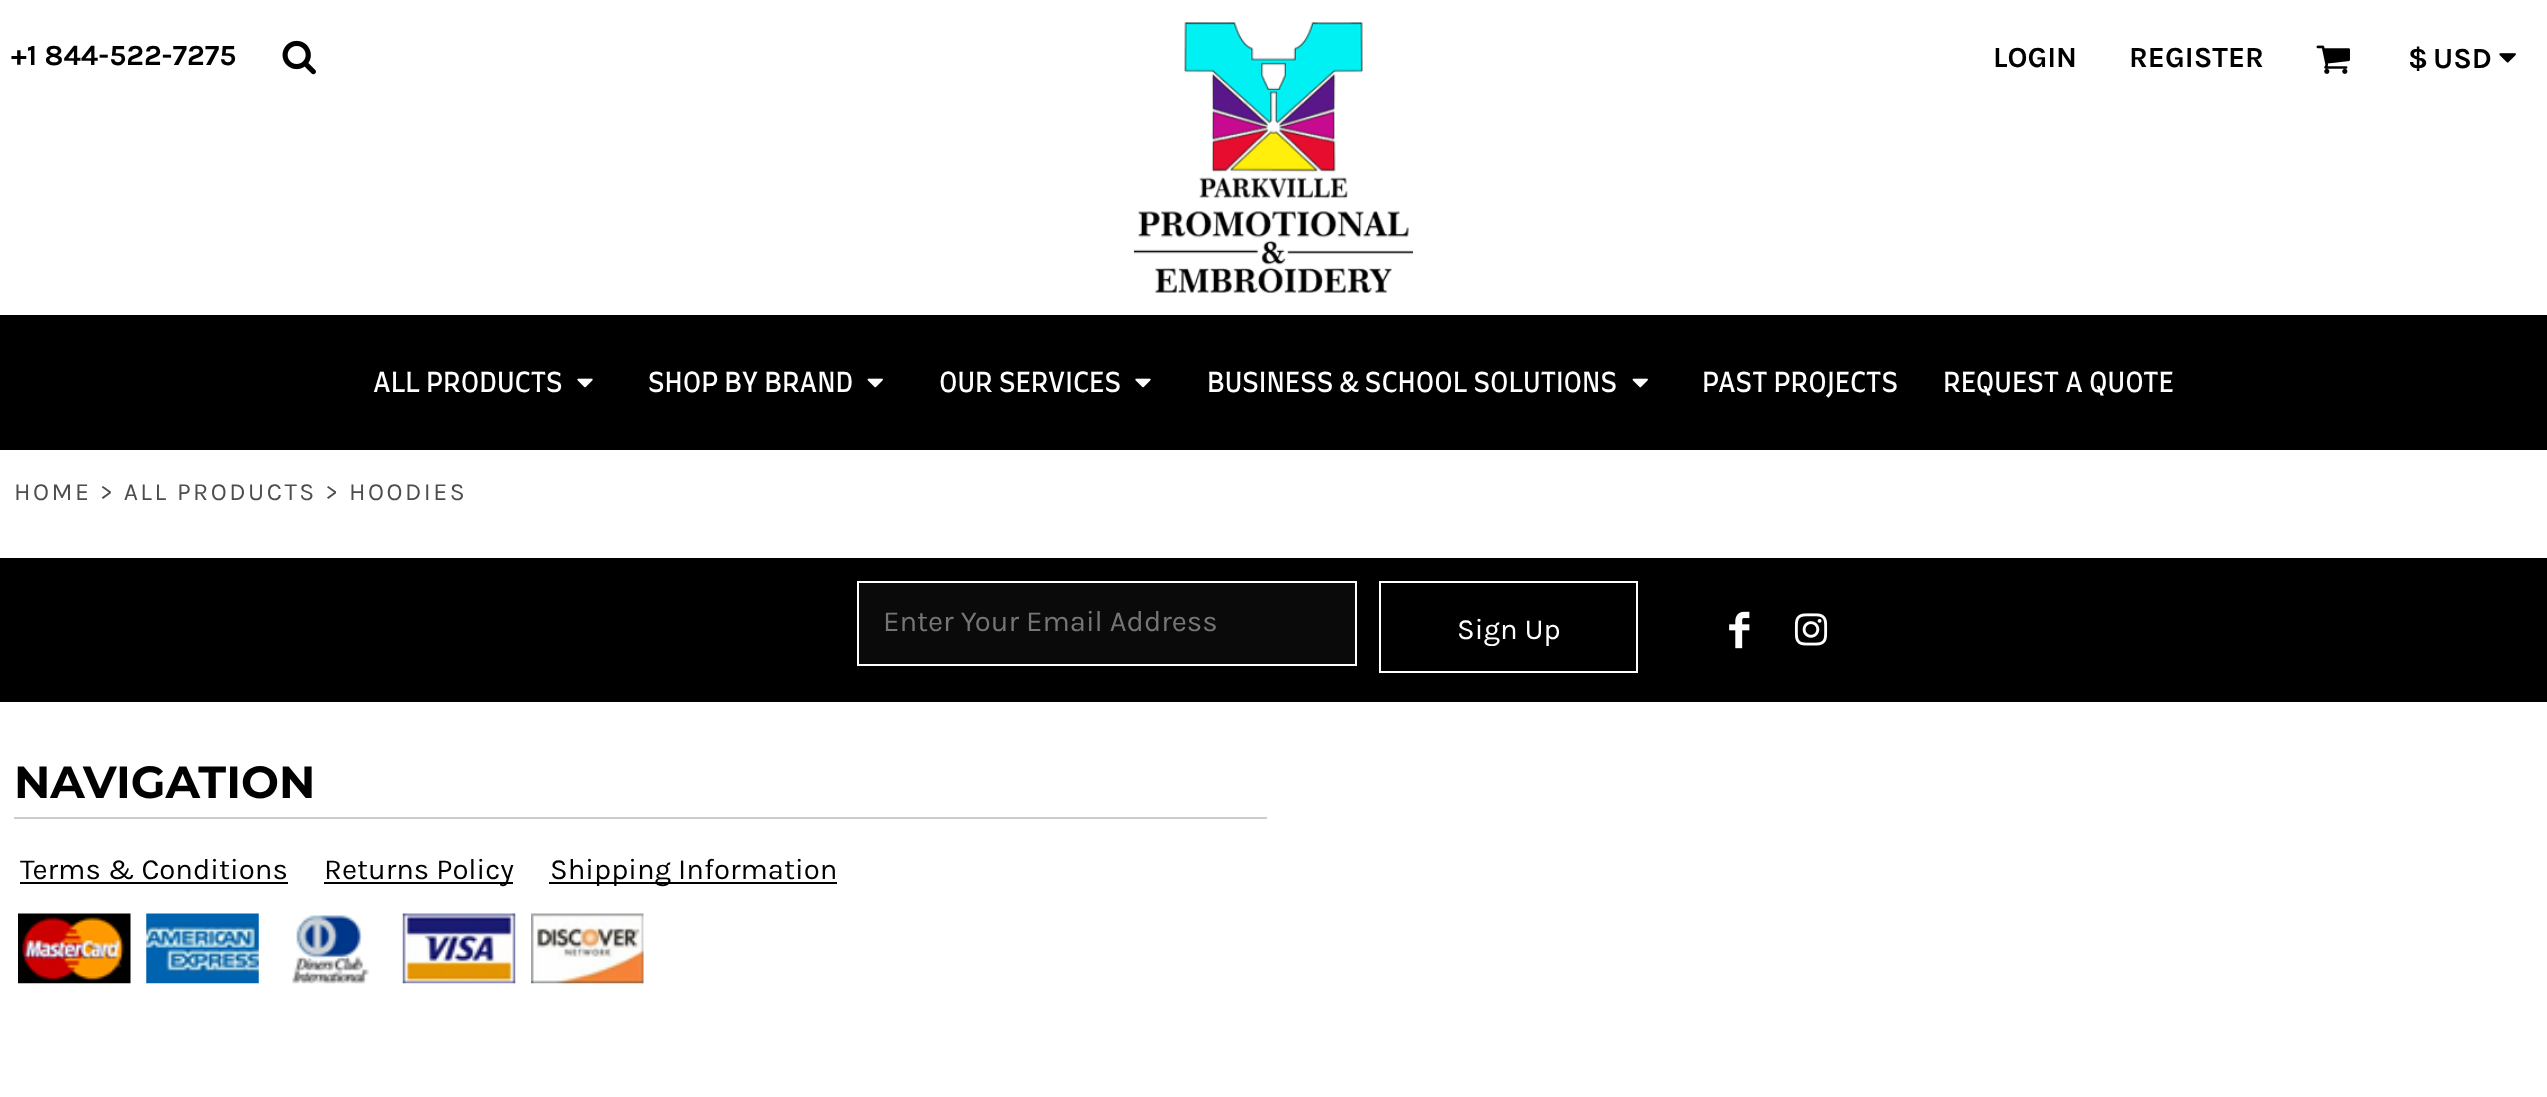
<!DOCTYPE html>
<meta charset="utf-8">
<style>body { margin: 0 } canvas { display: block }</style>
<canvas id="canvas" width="2547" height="1097"></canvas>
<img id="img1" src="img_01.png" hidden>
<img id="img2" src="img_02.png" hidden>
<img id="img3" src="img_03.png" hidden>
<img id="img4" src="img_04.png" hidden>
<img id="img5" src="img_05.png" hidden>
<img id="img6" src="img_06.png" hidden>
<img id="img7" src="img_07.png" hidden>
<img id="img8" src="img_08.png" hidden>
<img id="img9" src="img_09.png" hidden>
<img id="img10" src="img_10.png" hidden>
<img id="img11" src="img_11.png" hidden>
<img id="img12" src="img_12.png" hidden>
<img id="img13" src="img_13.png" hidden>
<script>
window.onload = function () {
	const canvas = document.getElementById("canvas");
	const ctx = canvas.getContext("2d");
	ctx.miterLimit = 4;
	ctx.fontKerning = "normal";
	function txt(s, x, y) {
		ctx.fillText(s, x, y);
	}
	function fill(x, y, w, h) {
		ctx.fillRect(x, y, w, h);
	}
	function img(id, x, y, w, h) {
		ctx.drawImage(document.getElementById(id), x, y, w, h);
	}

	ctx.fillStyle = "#FFFFFF";
	fill(0, 0, 2547, 1097);
	img("img1", 282, 40, 34, 35);
	img("img2", 1134, 22, 279, 271);
	img("img3", 2316, 45, 34, 29);
	img("img4", 2499, 53, 17, 10);
	ctx.fillStyle = "#000000";
	fill(0, 315, 2547, 135);
	img("img5", 577, 378, 16, 10);
	img("img6", 867, 378, 16, 10);
	img("img5", 1135, 378, 16, 10);
	img("img6", 1632, 378, 16, 10);
	fill(0, 558, 2547, 144);
	ctx.fillStyle = "#0A0A0A";
	ctx.beginPath();
	ctx.rect(858, 582, 498, 83);
	ctx.fill();
	ctx.strokeStyle = "#FFFFFF";
	ctx.lineWidth = 2;
	ctx.stroke();
	ctx.strokeRect(1380, 582, 257, 90);
	img("img7", 1729, 611, 21, 38);
	img("img8", 1794, 613, 34, 33);
	ctx.fillStyle = "#CCCCCC";
	fill(14, 817, 1253, 2);
	ctx.fillStyle = "#000000";
	fill(20, 882, 268, 2);
	fill(324, 882, 189, 2);
	fill(549, 882, 288, 2);
	img("img9", 18, 913, 113, 71);
	img("img10", 146, 913, 113, 71);
	img("img11", 292, 915, 78, 69);
	img("img12", 402, 913, 114, 71);
	img("img13", 531, 913, 113, 71);
	ctx.font = "bold 29.25px Karla";
	txt("+1 844-522-7275", 11, 65);
	txt("LOGIN", 1993, 67);
	txt("REGISTER", 2129, 67);
	txt("$", 2408, 68);
	txt("USD", 2433, 68);
	ctx.font = "27px Farro";
	ctx.fillStyle = "#FFFFFF";
	txt("ALL PRODUCTS", 373, 392);
	txt("SHOP BY BRAND", 648, 392);
	txt("OUR SERVICES", 939, 392);
	txt("BUSINESS & SCHOOL SOLUTIONS", 1207, 392);
	txt("PAST PROJECTS", 1702, 392);
	txt("REQUEST A QUOTE", 1943, 392);
	ctx.letterSpacing = "2.5px";
	ctx.font = "24.75px Karla";
	ctx.fillStyle = "#4D4D4D";
	txt("HOME > ALL PRODUCTS > HOODIES", 14, 500);
	ctx.letterSpacing = "0px";
	ctx.font = "29.25px Karla";
	ctx.fillStyle = "#757575";
	txt("Enter Your Email Address", 883, 631);
	ctx.save();
	ctx.beginPath();
	ctx.rect(1458, 612, 104, 34);
	ctx.clip();
	ctx.fillStyle = "#FFFFFF";
	txt("Sign Up", 1457, 639);
	ctx.restore();
	ctx.font = "100 45px Montserrat";
	ctx.fillStyle = "#000000";
	txt("NAVIGATION", 14, 798);
	ctx.font = "29.25px Karla";
	txt("Terms & Conditions", 20, 879);
	txt("Returns Policy", 324, 879);
	txt("Shipping Information", 550, 879);
};
</script>
